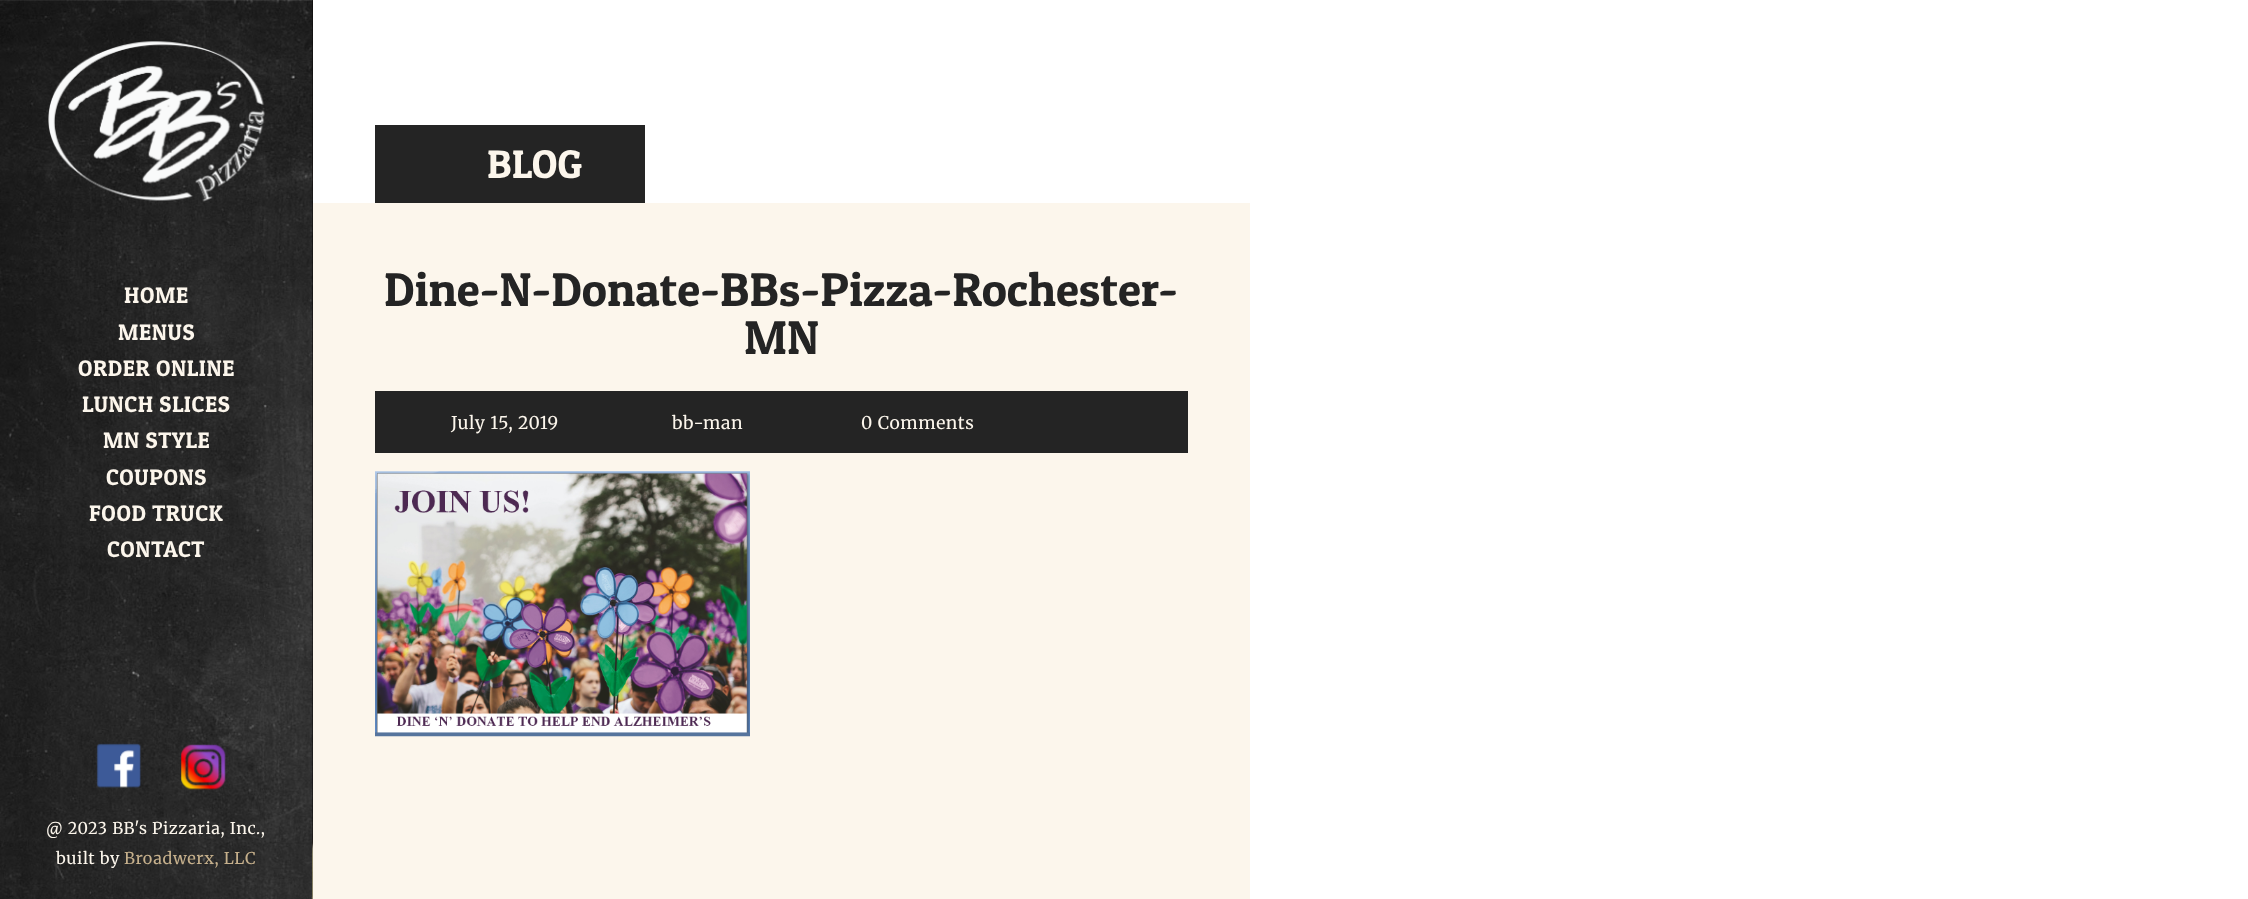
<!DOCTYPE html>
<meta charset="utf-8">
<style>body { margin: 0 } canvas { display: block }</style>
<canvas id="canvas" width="2248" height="899"></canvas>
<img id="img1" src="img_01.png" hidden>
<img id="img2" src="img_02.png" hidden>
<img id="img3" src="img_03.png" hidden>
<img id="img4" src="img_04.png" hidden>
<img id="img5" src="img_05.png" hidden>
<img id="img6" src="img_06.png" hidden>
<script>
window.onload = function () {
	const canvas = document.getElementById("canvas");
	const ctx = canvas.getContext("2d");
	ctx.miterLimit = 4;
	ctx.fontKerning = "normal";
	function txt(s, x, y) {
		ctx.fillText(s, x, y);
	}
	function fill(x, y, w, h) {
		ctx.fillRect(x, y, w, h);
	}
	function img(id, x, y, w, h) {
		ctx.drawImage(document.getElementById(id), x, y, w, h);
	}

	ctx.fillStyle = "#FFFFFF";
	fill(0, 0, 2248, 899);
	img("img1", 312, 0, 1, 899);
	img("img2", 0, 0, 313, 899);
	img("img3", 48, 41, 218, 161);
	img("img4", 96, 743, 45, 45);
	img("img5", 181, 744, 45, 46);
	ctx.fillStyle = "#242424";
	fill(375, 125, 270, 78);
	ctx.fillStyle = "#FCF6EC";
	fill(313, 203, 937, 696);
	ctx.fillStyle = "#242424";
	fill(375, 391, 813, 62);
	img("img6", 375, 471, 375, 266);
	ctx.letterSpacing = "0.6px";
	ctx.font = "22.5px Patua One";
	ctx.fillStyle = "#FCF6EC";
	txt("HOME", 124, 303);
	txt("MENUS", 118, 340);
	txt("ORDER ONLINE", 78, 376);
	txt("LUNCH SLICES", 82, 412);
	txt("MN STYLE", 103, 448);
	txt("COUPONS", 106, 485);
	txt("FOOD TRUCK", 89, 521);
	txt("CONTACT", 107, 557);
	ctx.font = "300 16.25px Merriweather";
	txt("@ 2023 BB's Pizzaria, Inc.,", 46, 834);
	txt("built by", 56, 864);
	ctx.fillStyle = "#C6B08C";
	txt("Broadwerx, LLC", 124, 864);
	ctx.letterSpacing = "0px";
	ctx.font = "40px Patua One";
	ctx.fillStyle = "#FCF6EC";
	txt("BLOG", 487, 178);
	ctx.font = "47.5px Patua One";
	ctx.fillStyle = "#242424";
	txt("Dine-N-Donate-BBs-Pizza-Rochester-", 384, 306);
	txt("MN", 744, 354);
	ctx.letterSpacing = "0.6px";
	ctx.font = "300 17.5px Merriweather";
	ctx.fillStyle = "#FCF6EC";
	txt("July 15, 2019", 451, 429);
	txt("bb-man", 672, 429);
	txt("0 Comments", 861, 429);
};
</script>
